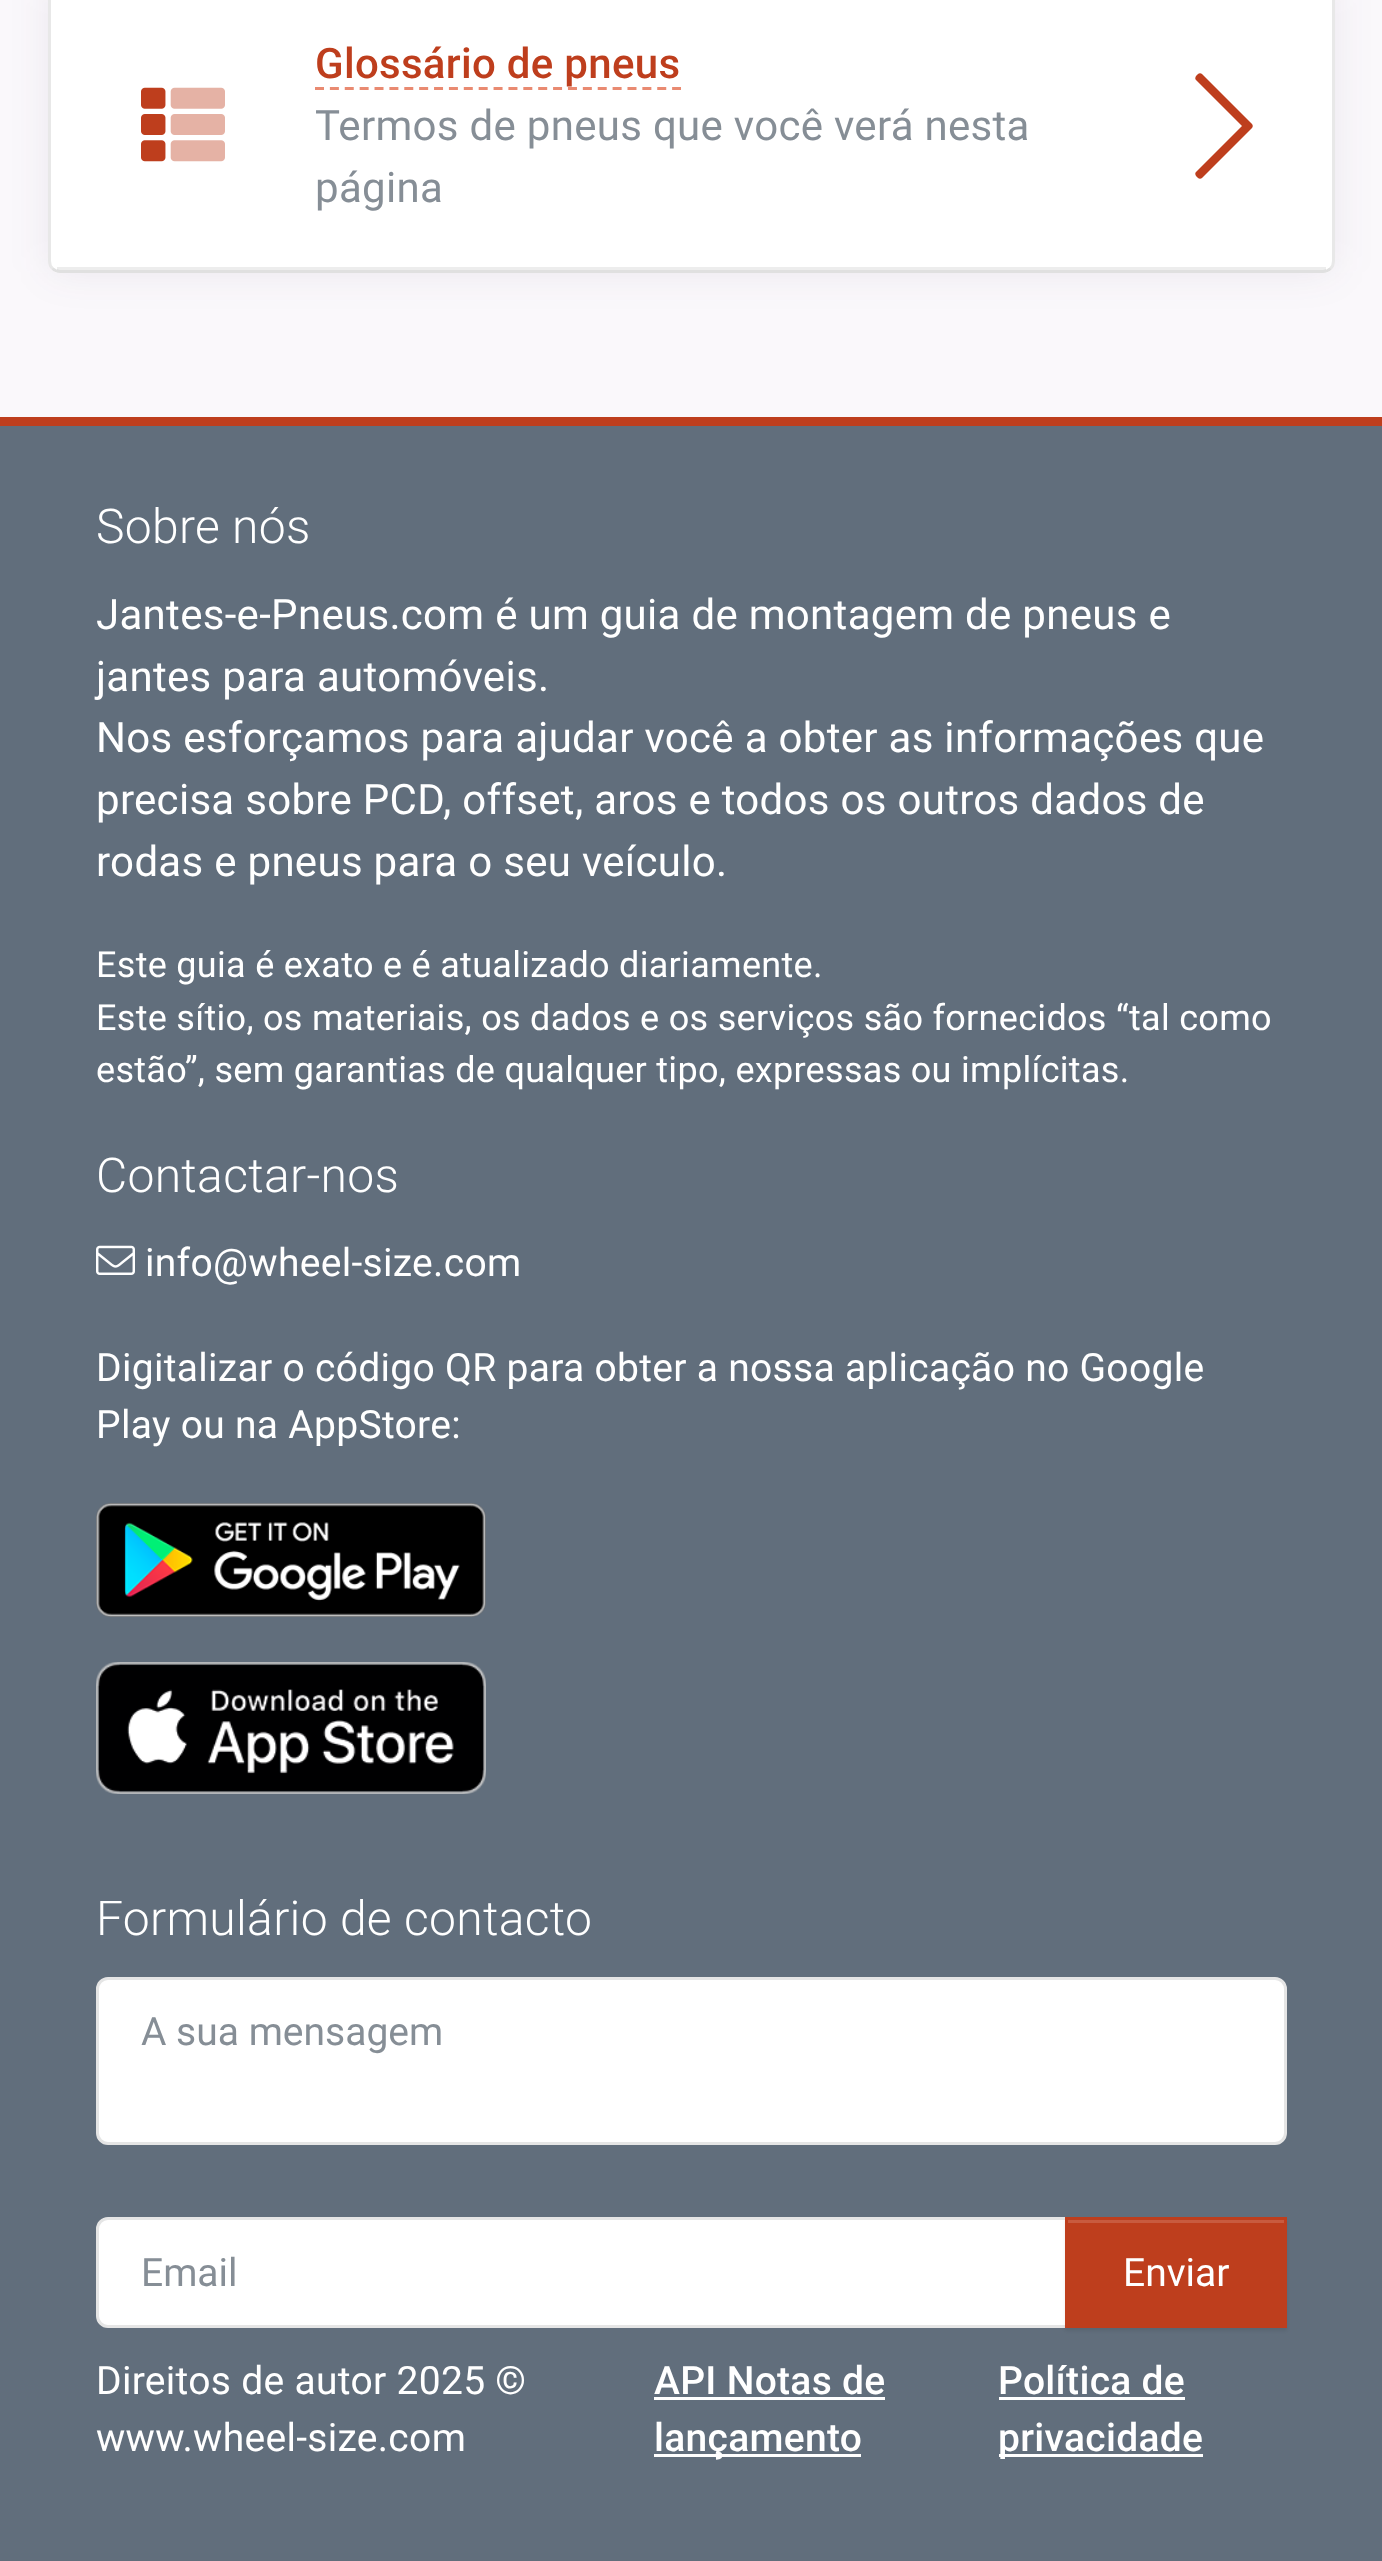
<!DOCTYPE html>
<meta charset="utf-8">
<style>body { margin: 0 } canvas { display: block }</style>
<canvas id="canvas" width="1382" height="2561"></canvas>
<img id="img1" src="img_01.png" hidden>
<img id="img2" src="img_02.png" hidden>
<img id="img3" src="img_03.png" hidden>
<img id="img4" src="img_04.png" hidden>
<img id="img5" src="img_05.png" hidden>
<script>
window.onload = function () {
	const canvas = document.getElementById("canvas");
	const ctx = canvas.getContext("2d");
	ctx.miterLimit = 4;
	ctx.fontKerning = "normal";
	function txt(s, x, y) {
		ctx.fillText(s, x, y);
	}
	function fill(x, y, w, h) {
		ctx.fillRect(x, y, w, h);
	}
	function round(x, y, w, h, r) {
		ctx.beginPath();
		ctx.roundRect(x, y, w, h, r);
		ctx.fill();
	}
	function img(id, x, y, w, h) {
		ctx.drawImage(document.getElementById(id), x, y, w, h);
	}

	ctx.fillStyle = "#616E7C";
	fill(0, 0, 1382, 2561);
	ctx.fillStyle = "#FAF8FB";
	fill(0, 0, 1382, 417);
	ctx.fillStyle = "rgba(62, 44, 90, 0.08)";
	ctx.filter = "blur(19.5px)";
	ctx.beginPath();
	ctx.roundRect(48, -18, 1287, 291, 12);
	ctx.fill();
	ctx.filter = "none";
	ctx.fillStyle = "#FFFFFF";
	round(48, -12, 1287, 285, 12);
	ctx.beginPath();
	ctx.moveTo(1330.5, 268.5);
	ctx.bezierCurveTo(1328.5, 270.5, 1326, 271.5, 1323, 271.5);
	ctx.lineTo(60, 271.5);
	ctx.bezierCurveTo(57, 271.5, 54.5, 270.5, 52.5, 268.5);
	ctx.strokeStyle = "#E0E0E0";
	ctx.lineWidth = 3;
	ctx.stroke();
	ctx.beginPath();
	ctx.moveTo(52.5, 268.5);
	ctx.bezierCurveTo(50.5, 266.5, 49.5, 264, 49.5, 261);
	ctx.lineTo(49.5, -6);
	ctx.bezierCurveTo(49.5, -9, 50.5, -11.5, 52.5, -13.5);
	ctx.bezierCurveTo(54.5, -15.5, 57, -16.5, 60, -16.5);
	ctx.lineTo(1323, -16.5);
	ctx.bezierCurveTo(1326, -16.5, 1328.5, -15.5, 1330.5, -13.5);
	ctx.bezierCurveTo(1332.5, -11.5, 1333.5, -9, 1333.5, -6);
	ctx.lineTo(1333.5, 261);
	ctx.bezierCurveTo(1333.5, 264, 1332.5, 266.5, 1330.5, 268.5);
	ctx.strokeStyle = "rgba(0, 0, 0, 0.09)";
	ctx.stroke();
	ctx.fillStyle = "rgba(0, 0, 0, 0.07)";
	fill(57, 267, 1269, 3);
	img("img1", 141, 87, 25, 75);
	img("img2", 170, 87, 55, 75);
	ctx.beginPath();
	ctx.moveTo(315, 88.5);
	ctx.lineTo(681, 88.5);
	ctx.strokeStyle = "#E98A71";
	ctx.setLineDash([9, 5.88]);
	ctx.stroke();
	ctx.fillStyle = "#BE3E1D";
	ctx.beginPath();
	ctx.moveTo(1198, 74);
	ctx.bezierCurveTo(1199, 73, 1201, 73, 1202, 74);
	ctx.lineTo(1252, 124);
	ctx.bezierCurveTo(1253, 125, 1253, 127, 1252, 128);
	ctx.lineTo(1202, 178);
	ctx.bezierCurveTo(1201, 179, 1199, 179, 1198, 178);
	ctx.lineTo(1196, 176);
	ctx.bezierCurveTo(1195, 174, 1195, 173, 1196, 172);
	ctx.lineTo(1242, 126);
	ctx.lineTo(1196, 80);
	ctx.bezierCurveTo(1195, 79, 1195, 78, 1196, 76);
	ctx.closePath();
	ctx.fill();
	fill(0, 417, 1382, 9);
	img("img3", 96, 1245, 39, 30);
	img("img4", 96, 1503, 390, 114);
	img("img5", 96, 1662, 390, 132);
	ctx.fillStyle = "#FFFFFF";
	ctx.beginPath();
	ctx.roundRect(97.5, 1978.5, 1188, 165, 10.5);
	ctx.fill();
	ctx.strokeStyle = "#E5E5E5";
	ctx.setLineDash([]);
	ctx.stroke();
	ctx.beginPath();
	ctx.roundRect(97.5, 2218.5, 969, 108, [10.5, 0, 0, 10.5]);
	ctx.fill();
	ctx.stroke();
	ctx.fillStyle = "rgba(0, 0, 0, 0.07)";
	ctx.filter = "blur(1.5px)";
	ctx.beginPath();
	ctx.rect(1065, 2220, 222, 111);
	ctx.fill();
	ctx.filter = "none";
	ctx.fillStyle = "#BE3E1D";
	fill(1065, 2217, 222, 111);
	ctx.fillStyle = "#C85B3F";
	fill(1068, 2220, 216, 3);
	ctx.fillStyle = "#FFFFFF";
	fill(654, 2397, 231, 3);
	fill(654, 2454, 207, 3);
	fill(999, 2397, 186, 3);
	fill(999, 2454, 204, 3);
	ctx.letterSpacing = "0.3px";
	ctx.font = "500 42px Roboto";
	ctx.fillStyle = "#BE3E1D";
	txt("Glossário de pneus", 315, 78);
	ctx.font = "42px Roboto";
	ctx.fillStyle = "#868E96";
	txt("Termos de pneus que você verá nesta", 315, 140);
	txt("página", 315, 202);
	ctx.font = "300 48px Roboto";
	ctx.fillStyle = "#FFFFFF";
	txt("Sobre nós", 96, 543);
	ctx.font = "42px Roboto";
	txt("Jantes-e-Pneus.com é um guia de montagem de pneus e", 96, 629);
	txt("jantes para automóveis.", 96, 691);
	txt("Nos esforçamos para ajudar você a obter as informações que", 96, 752);
	txt("precisa sobre PCD, offset, aros e todos os outros dados de", 96, 814);
	txt("rodas e pneus para o seu veículo.", 96, 876);
	ctx.font = "36px Roboto";
	txt("Este guia é exato e é atualizado diariamente.", 96, 977);
	txt("Este sítio, os materiais, os dados e os serviços são fornecidos “tal como", 96, 1030);
	txt("estão”, sem garantias de qualquer tipo, expressas ou implícitas.", 96, 1082);
	ctx.font = "300 48px Roboto";
	txt("Contactar-nos", 96, 1192);
	ctx.font = "39px Roboto";
	txt("info@wheel-size.com", 145, 1276);
	txt("Digitalizar o código QR para obter a nossa aplicação no Google", 96, 1381);
	txt("Play ou na AppStore:", 96, 1438);
	ctx.font = "300 48px Roboto";
	txt("Formulário de contacto", 96, 1935);
	ctx.letterSpacing = "0px";
	ctx.font = "39px Roboto";
	ctx.fillStyle = "#868E96";
	txt("A sua mensagem", 141, 2045);
	txt("Email", 141, 2286);
	ctx.fillStyle = "#FFFFFF";
	txt("Enviar", 1123, 2286);
	ctx.letterSpacing = "0.3px";
	txt("Direitos de autor 2025 ©", 96, 2394);
	txt("www.wheel-size.com", 96, 2451);
	ctx.font = "500 39px Roboto";
	txt("API Notas de", 654, 2394);
	txt("lançamento", 654, 2451);
	txt("Política de", 998, 2394);
	txt("privacidade", 998, 2451);
};
</script>
